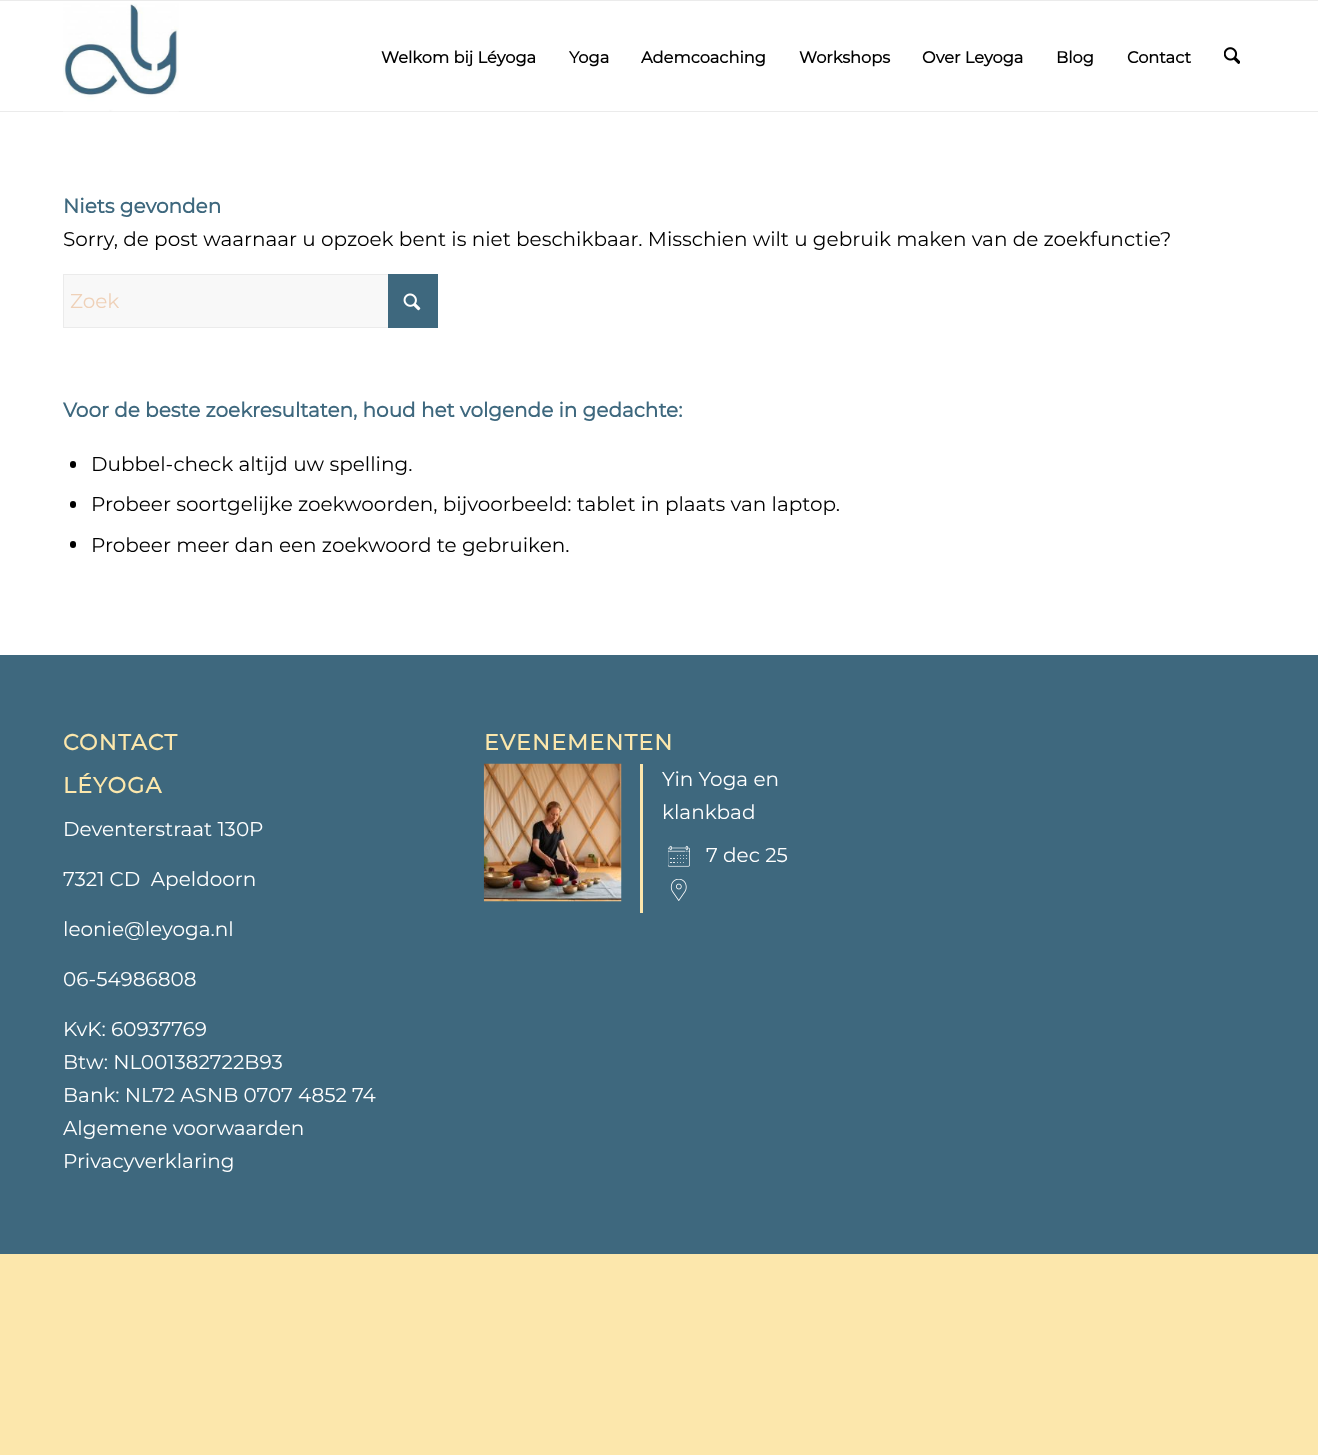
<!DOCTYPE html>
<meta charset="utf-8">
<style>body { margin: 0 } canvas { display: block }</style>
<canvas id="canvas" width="1318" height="1455"></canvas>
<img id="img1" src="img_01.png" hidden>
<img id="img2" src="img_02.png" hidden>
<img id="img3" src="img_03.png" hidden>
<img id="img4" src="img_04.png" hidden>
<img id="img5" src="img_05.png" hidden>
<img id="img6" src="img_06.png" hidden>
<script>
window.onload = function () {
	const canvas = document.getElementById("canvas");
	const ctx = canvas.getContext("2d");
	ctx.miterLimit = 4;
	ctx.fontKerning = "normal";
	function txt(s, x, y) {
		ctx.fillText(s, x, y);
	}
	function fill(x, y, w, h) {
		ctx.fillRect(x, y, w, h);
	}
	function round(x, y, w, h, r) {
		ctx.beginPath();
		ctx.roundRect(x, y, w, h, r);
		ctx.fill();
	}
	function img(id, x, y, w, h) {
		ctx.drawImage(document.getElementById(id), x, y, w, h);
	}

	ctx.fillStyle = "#FCE7AC";
	fill(0, 0, 1318, 1455);
	ctx.fillStyle = "#FFFFFF";
	fill(0, 1, 1318, 654);
	ctx.fillStyle = "#EBEBEB";
	fill(0, 0, 1318, 1);
	fill(0, 111, 1318, 1);
	img("img1", 63, 3, 116, 109);
	img("img2", 1224, 47, 16, 17);
	ctx.fillStyle = "#F8F8F8";
	fill(64, 275, 324, 52);
	ctx.strokeStyle = "#EBEBEB";
	ctx.strokeRect(63.5, 274.5, 374, 53);
	ctx.fillStyle = "#3E687E";
	fill(388, 274, 50, 54);
	img("img3", 403, 293, 18, 18);
	ctx.fillStyle = "#000000";
	round(70, 461, 6, 7, 3);
	round(70, 501, 6, 7, 3);
	round(70, 541, 6, 7, 3);
	ctx.fillStyle = "#3E687E";
	fill(0, 655, 1318, 599);
	img("img4", 483, 763, 139, 139);
	ctx.fillStyle = "#FCE6AC";
	fill(640, 764, 3, 149);
	img("img5", 668, 845, 22, 22);
	img("img6", 670, 879, 17, 22);
	ctx.font = "bold 16.25px Montserrat";
	ctx.fillStyle = "#000000";
	txt("Welkom bij Léyoga", 381, 63);
	txt("Yoga", 569, 63);
	txt("Ademcoaching", 641, 63);
	txt("Workshops", 799, 63);
	txt("Over Leyoga", 922, 63);
	txt("Blog", 1056, 63);
	txt("Contact", 1127, 63);
	ctx.font = "bold 20px Montserrat";
	ctx.fillStyle = "#3E687E";
	txt("Niets gevonden", 63, 213);
	ctx.font = "100 20px Montserrat";
	ctx.fillStyle = "#000000";
	txt("Sorry, de post waarnaar u opzoek bent is niet beschikbaar. Misschien wilt u gebruik maken van de zoekfunctie?", 63, 246);
	ctx.fillStyle = "#EFD1B8";
	txt("Zoek", 70, 308);
	ctx.font = "bold 20px Montserrat";
	ctx.fillStyle = "#3E687E";
	txt("Voor de beste zoekresultaten, houd het volgende in gedachte:", 63, 417);
	ctx.font = "100 20px Montserrat";
	ctx.fillStyle = "#000000";
	txt("Dubbel-check altijd uw spelling.", 91, 471);
	txt("Probeer soortgelijke zoekwoorden, bijvoorbeeld: tablet in plaats van laptop.", 91, 511);
	txt("Probeer meer dan een zoekwoord te gebruiken.", 91, 552);
	ctx.letterSpacing = "1.25px";
	ctx.font = "bold 22px Montserrat";
	ctx.fillStyle = "#FCE7AC";
	txt("CONTACT", 63, 750);
	txt("LÉYOGA", 63, 793);
	ctx.letterSpacing = "0px";
	ctx.font = "100 20px Montserrat";
	ctx.fillStyle = "#FFFFFF";
	txt("Deventerstraat 130P", 63, 836);
	txt("7321 CD  Apeldoorn", 63, 886);
	txt("leonie@leyoga.nl", 63, 936);
	txt("06-54986808", 63, 986);
	txt("KvK: 60937769", 63, 1036);
	txt("Btw: NL001382722B93", 63, 1069);
	txt("Bank: NL72 ASNB 0707 4852 74", 63, 1102);
	txt("Algemene voorwaarden", 63, 1135);
	txt("Privacyverklaring", 63, 1168);
	ctx.letterSpacing = "1.25px";
	ctx.font = "bold 22px Montserrat";
	ctx.fillStyle = "#FCE7AC";
	txt("EVENEMENTEN", 484, 750);
	ctx.letterSpacing = "0px";
	ctx.font = "100 20px Montserrat";
	ctx.fillStyle = "#FFFFFF";
	txt("Yin Yoga en", 662, 786);
	txt("klankbad", 662, 819);
	txt("7 dec 25", 706, 862);
};
</script>
